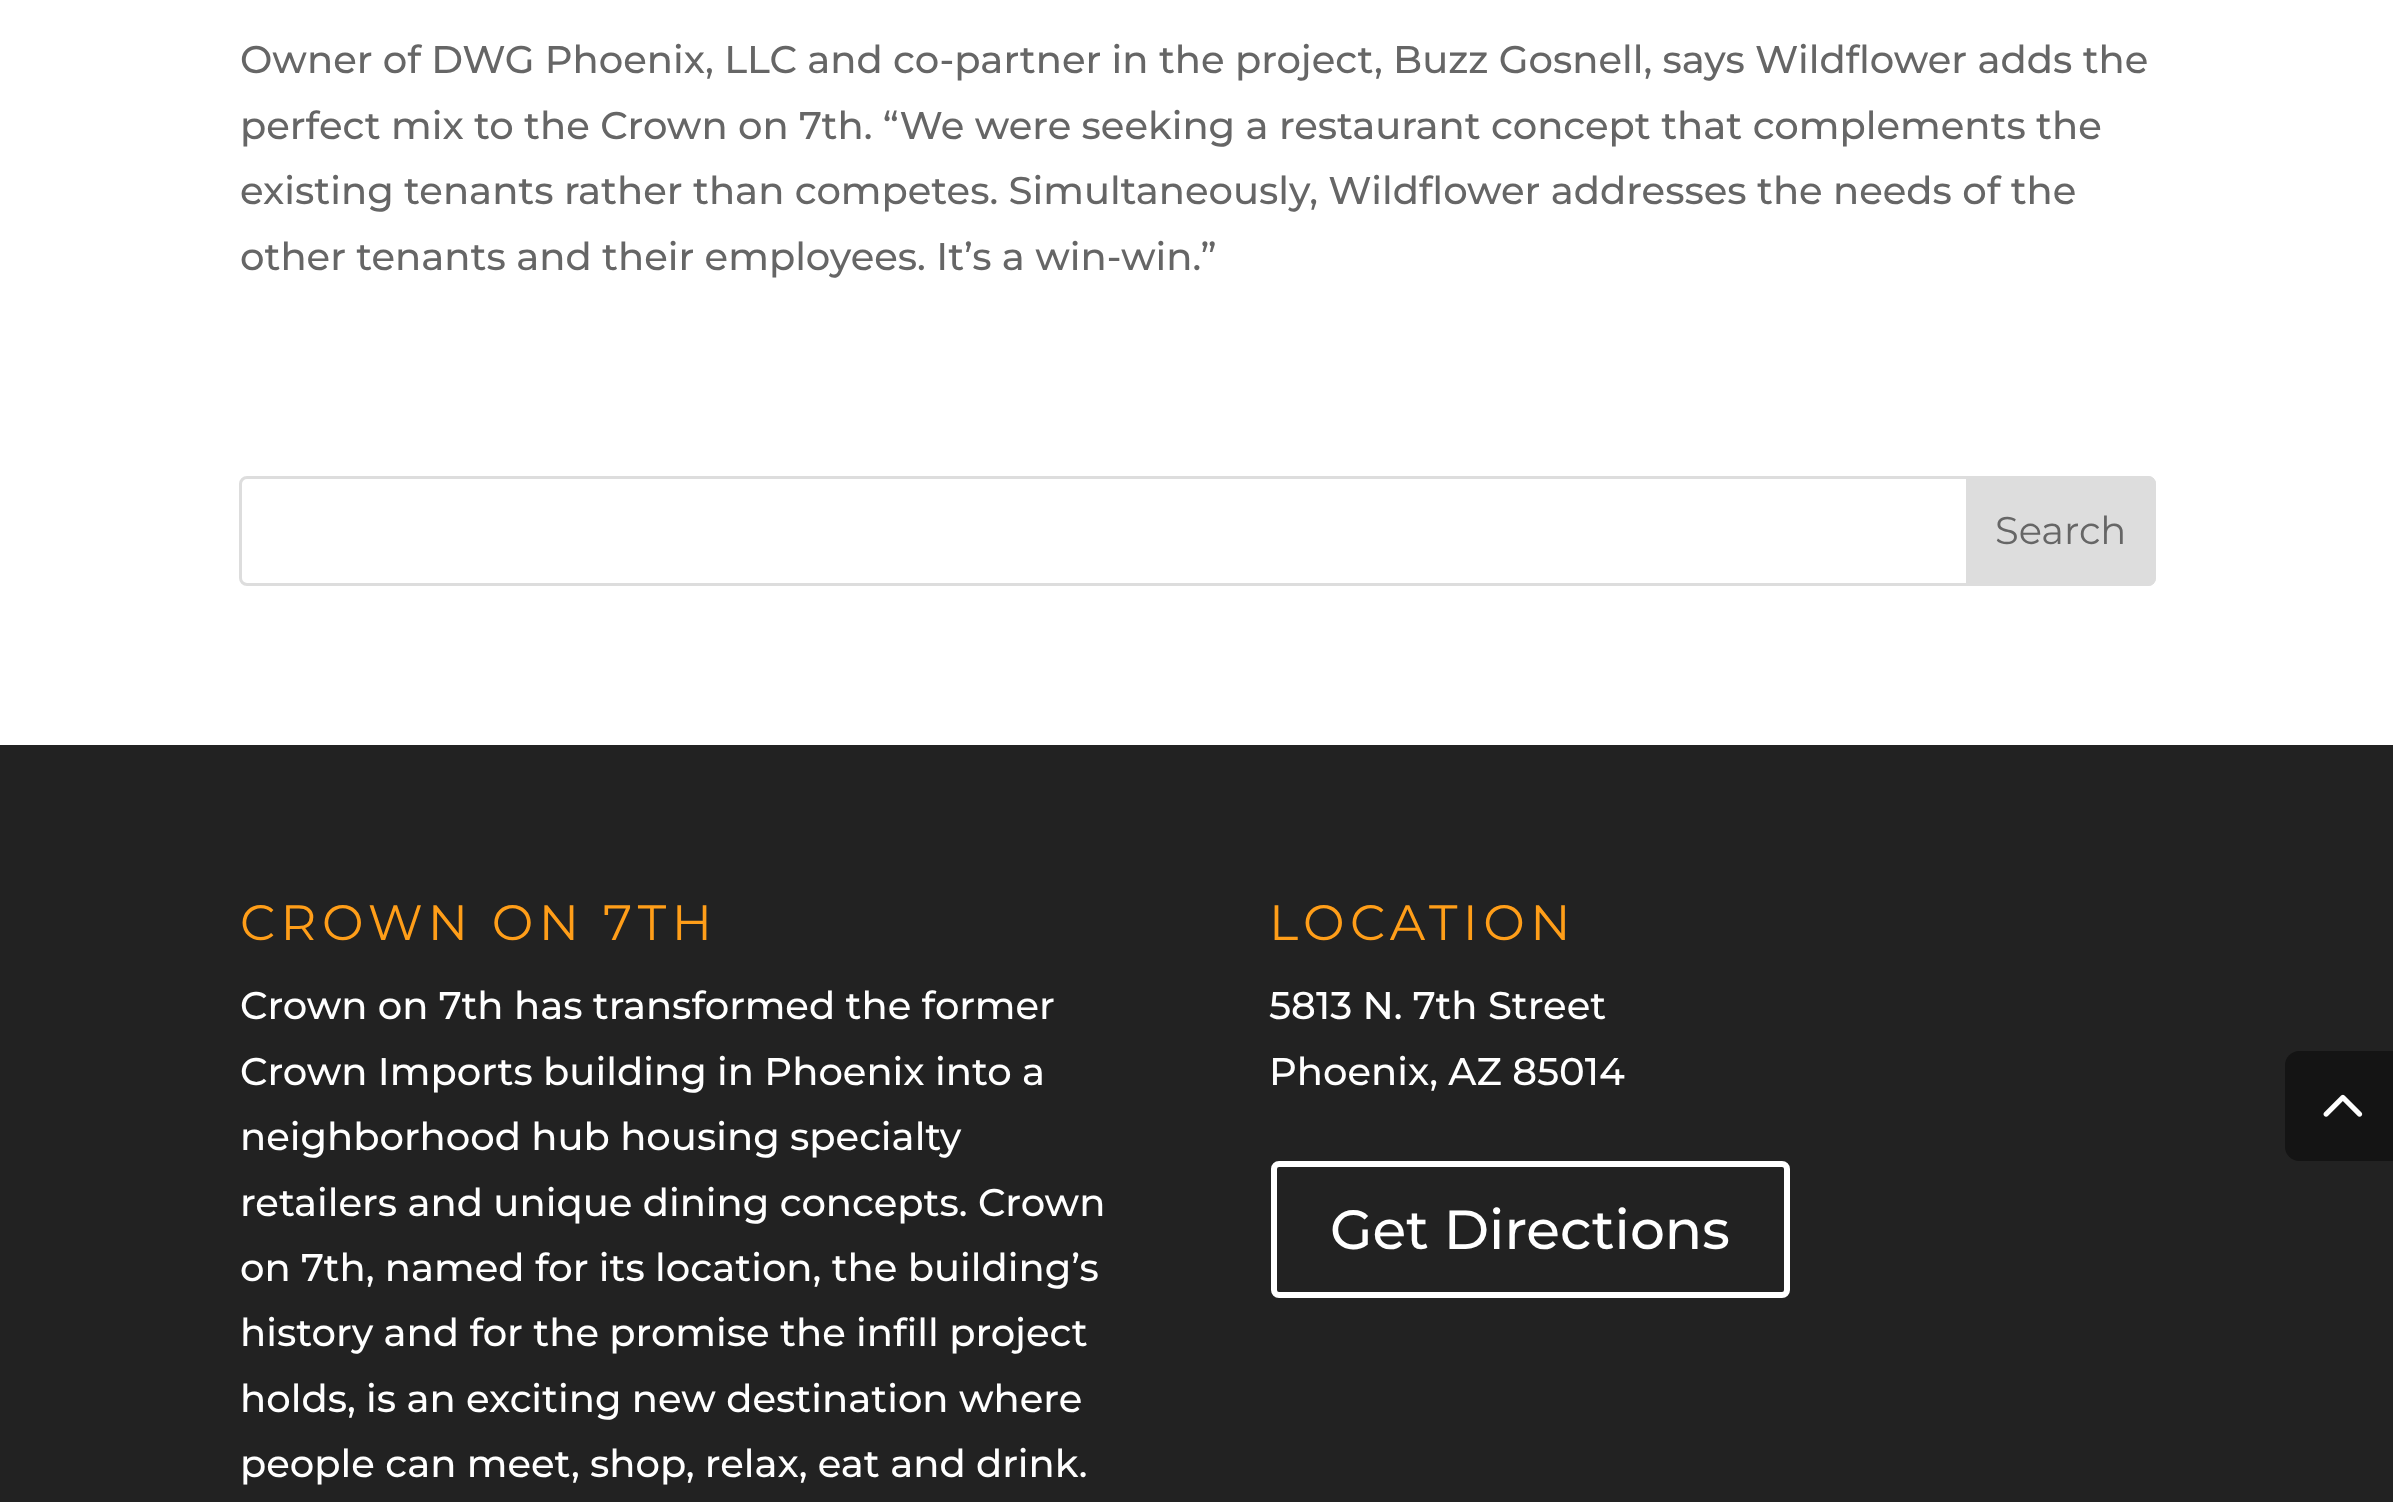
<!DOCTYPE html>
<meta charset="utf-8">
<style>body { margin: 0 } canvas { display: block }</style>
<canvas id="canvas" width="2393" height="1502"></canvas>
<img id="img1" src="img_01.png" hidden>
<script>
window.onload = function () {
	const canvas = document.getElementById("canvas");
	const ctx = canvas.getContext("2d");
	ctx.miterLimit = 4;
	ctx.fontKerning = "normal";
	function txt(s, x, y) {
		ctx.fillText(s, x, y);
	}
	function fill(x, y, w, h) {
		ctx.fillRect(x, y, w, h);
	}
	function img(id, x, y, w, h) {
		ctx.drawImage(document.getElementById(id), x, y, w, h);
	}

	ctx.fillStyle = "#FFFFFF";
	fill(0, 0, 2393, 1502);
	ctx.beginPath();
	ctx.roundRect(240.5, 477.5, 1914, 107, 6.5);
	ctx.strokeStyle = "#DDDDDD";
	ctx.lineWidth = 3;
	ctx.stroke();
	ctx.fillStyle = "#DDDDDD";
	ctx.beginPath();
	ctx.roundRect(1967.5, 477.5, 187, 107, [0, 6.5, 6.5, 0]);
	ctx.fill();
	ctx.stroke();
	ctx.fillStyle = "#222222";
	fill(0, 745, 2393, 757);
	ctx.beginPath();
	ctx.roundRect(1274, 1164, 513, 131, 5);
	ctx.strokeStyle = "#FFFFFF";
	ctx.lineWidth = 6;
	ctx.stroke();
	ctx.fillStyle = "#141414";
	ctx.beginPath();
	ctx.moveTo(2299, 1051);
	ctx.lineTo(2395, 1051);
	ctx.lineTo(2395, 1161);
	ctx.lineTo(2299, 1161);
	ctx.bezierCurveTo(2291.5, 1161, 2285, 1154.5, 2285, 1147);
	ctx.lineTo(2285, 1065);
	ctx.bezierCurveTo(2285, 1057.5, 2291.5, 1051, 2299, 1051);
	ctx.closePath();
	ctx.fill();
	img("img1", 2323, 1094, 40, 23);
	ctx.font = "500 38.5px Montserrat";
	ctx.fillStyle = "#666666";
	txt("Owner of DWG Phoenix, LLC and co-partner in the project, Buzz Gosnell, says Wildflower adds the", 240, 73);
	txt("perfect mix to the Crown on 7th. “We were seeking a restaurant concept that complements the", 240, 139);
	txt("existing tenants rather than competes. Simultaneously, Wildflower addresses the needs of the", 240, 204);
	txt("other tenants and their employees. It’s a win-win.”", 240, 270);
	ctx.font = "38.5px Montserrat";
	txt("Search", 1995, 544);
	ctx.letterSpacing = "5.5px";
	ctx.font = "49.5px Montserrat";
	ctx.fillStyle = "#FF9E19";
	txt("CROWN ON 7TH", 240, 940);
	ctx.letterSpacing = "0px";
	ctx.font = "500 38.5px Montserrat";
	ctx.fillStyle = "#FFFFFF";
	txt("Crown on 7th has transformed the former", 240, 1019);
	txt("Crown Imports building in Phoenix into a", 240, 1085);
	txt("neighborhood hub housing specialty", 240, 1150);
	txt("retailers and unique dining concepts. Crown", 240, 1216);
	txt("on 7th, named for its location, the building’s", 240, 1281);
	txt("history and for the promise the infill project", 240, 1346);
	txt("holds, is an exciting new destination where", 240, 1412);
	txt("people can meet, shop, relax, eat and drink.", 240, 1477);
	ctx.letterSpacing = "5.5px";
	ctx.font = "49.5px Montserrat";
	ctx.fillStyle = "#FF9E19";
	txt("LOCATION", 1269, 940);
	ctx.letterSpacing = "0px";
	ctx.font = "500 38.5px Montserrat";
	ctx.fillStyle = "#FFFFFF";
	txt("5813 N. 7th Street", 1269, 1019);
	txt("Phoenix, AZ 85014", 1269, 1085);
	ctx.font = "500 55px Montserrat";
	txt("Get Directions", 1330, 1249);
};
</script>
